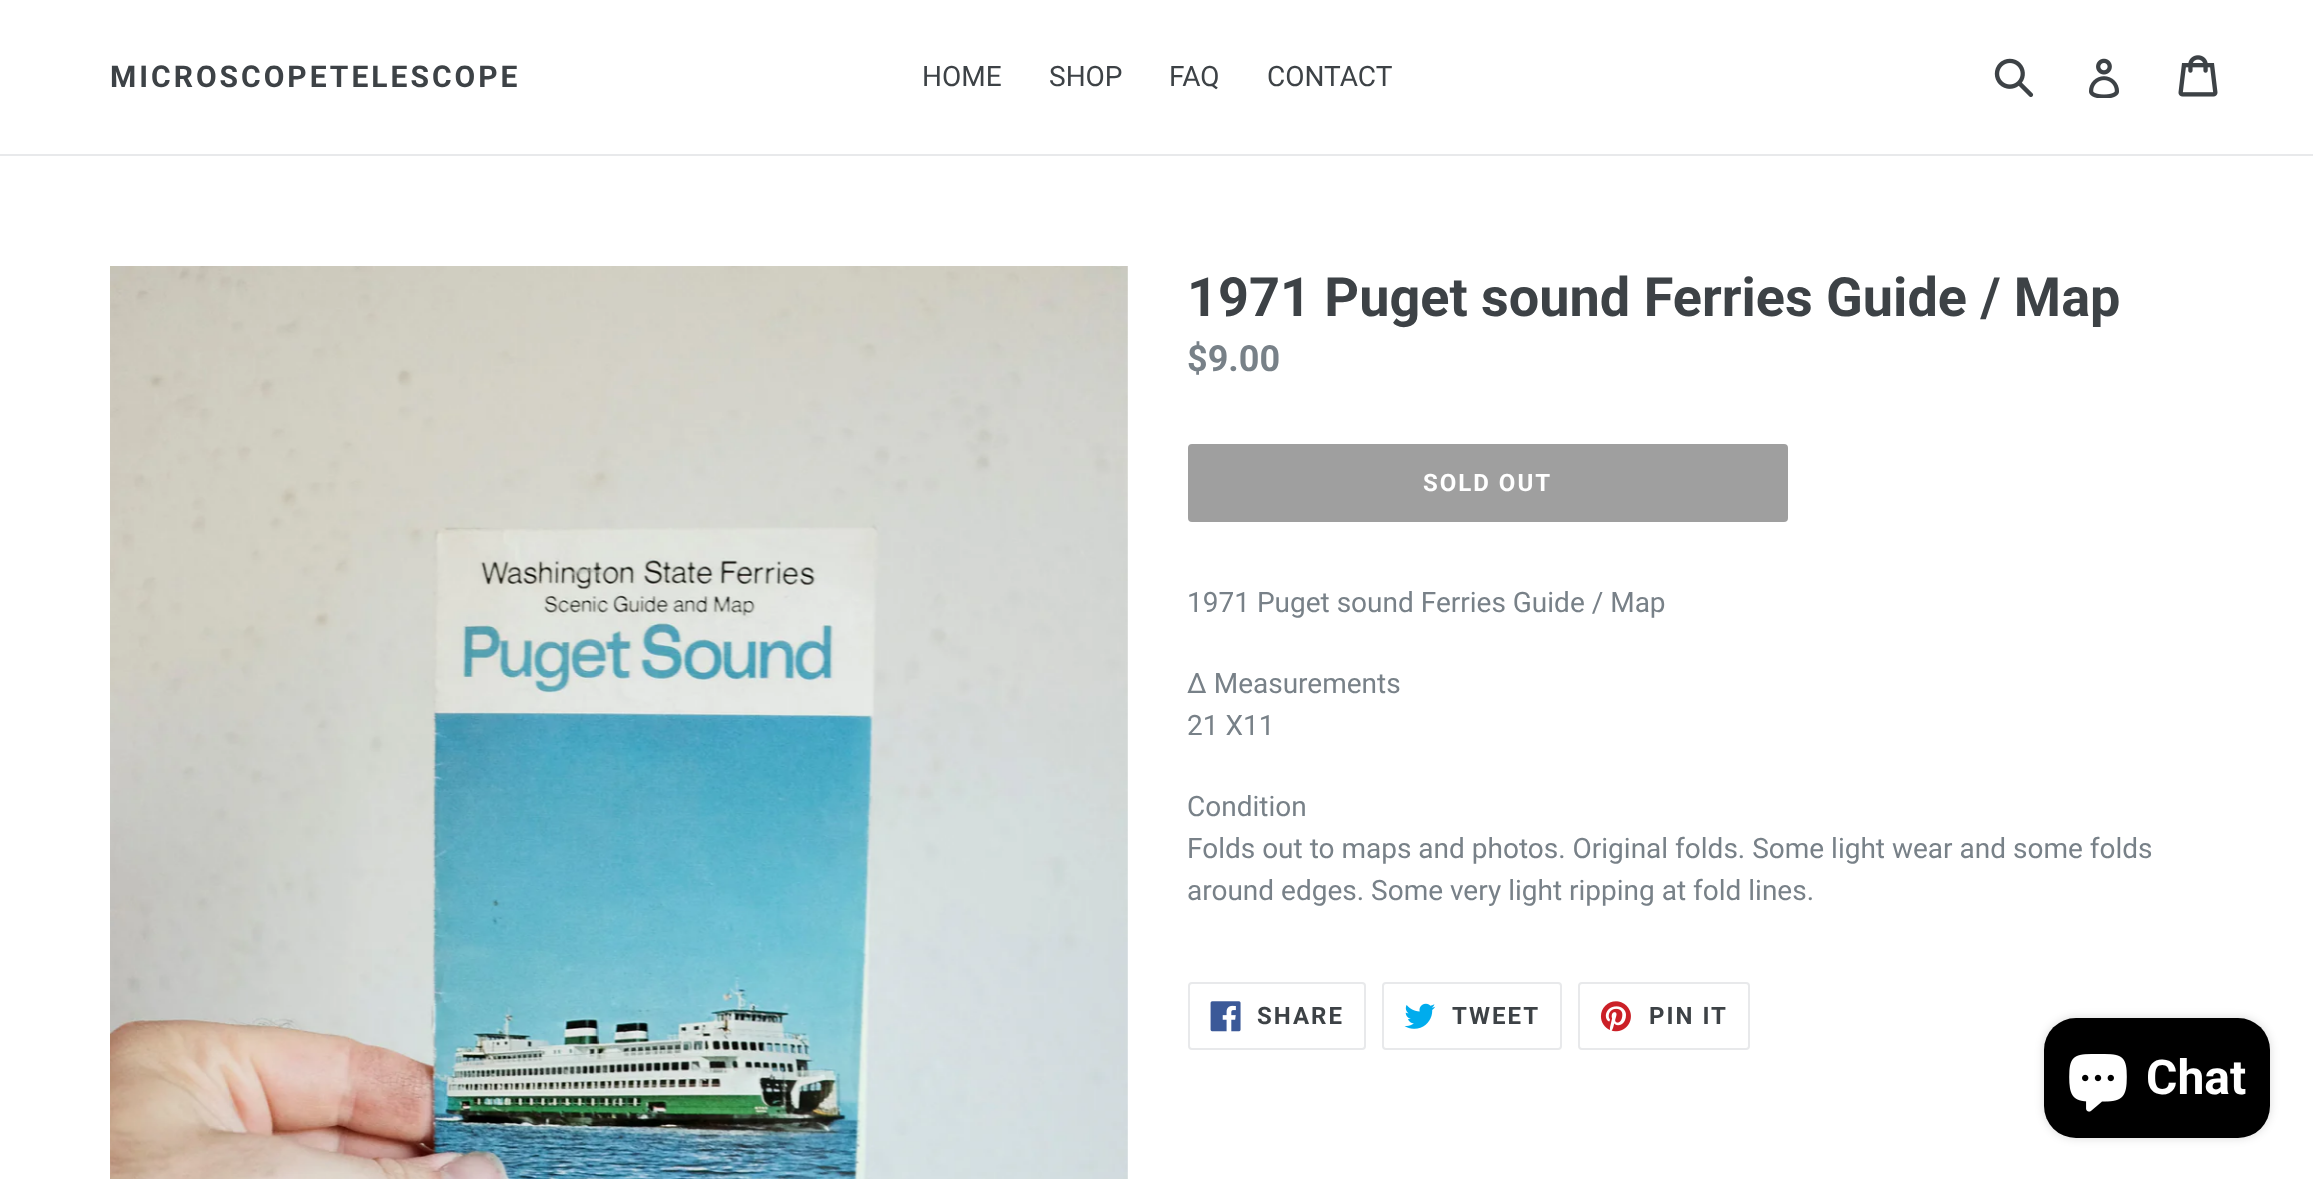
<!DOCTYPE html>
<meta charset="utf-8">
<style>body { margin: 0 } canvas { display: block }</style>
<canvas id="canvas" width="2313" height="1179"></canvas>
<img id="img1" src="img_01.png" hidden>
<img id="img2" src="img_02.png" hidden>
<img id="img3" src="img_03.png" hidden>
<img id="img4" src="img_04.png" hidden>
<img id="img5" src="img_05.png" hidden>
<img id="img6" src="img_06.png" hidden>
<img id="img7" src="img_07.png" hidden>
<img id="img8" src="img_08.png" hidden>
<script>
window.onload = function () {
	const canvas = document.getElementById("canvas");
	const ctx = canvas.getContext("2d");
	ctx.miterLimit = 4;
	ctx.fontKerning = "normal";
	function txt(s, x, y) {
		ctx.fillText(s, x, y);
	}
	function fill(x, y, w, h) {
		ctx.fillRect(x, y, w, h);
	}
	function round(x, y, w, h, r) {
		ctx.beginPath();
		ctx.roundRect(x, y, w, h, r);
		ctx.fill();
	}
	function img(id, x, y, w, h) {
		ctx.drawImage(document.getElementById(id), x, y, w, h);
	}

	ctx.fillStyle = "#FFFFFF";
	fill(0, 0, 2313, 1179);
	ctx.fillStyle = "#E8E9EB";
	fill(0, 154, 2313, 2);
	img("img1", 1994, 58, 40, 40);
	img("img2", 2089, 58, 30, 40);
	img("img3", 2178, 55, 40, 42);
	img("img4", 110, 266, 1018, 913);
	ctx.fillStyle = "#9F9F9F";
	round(1188, 444, 600, 78, 4);
	ctx.beginPath();
	ctx.roundRect(1189, 983, 176, 66, 3);
	ctx.strokeStyle = "#E8E9EB";
	ctx.lineWidth = 2;
	ctx.stroke();
	img("img5", 1210, 1001, 31, 31);
	ctx.beginPath();
	ctx.roundRect(1383, 983, 178, 66, 3);
	ctx.stroke();
	img("img6", 1404, 1003, 32, 26);
	ctx.beginPath();
	ctx.roundRect(1579, 983, 170, 66, 3);
	ctx.stroke();
	img("img7", 1600, 1001, 31, 31);
	ctx.fillStyle = "rgba(0, 0, 0, 0.15)";
	ctx.filter = "blur(5px)";
	ctx.beginPath();
	ctx.roundRect(2044, 1018, 226, 120, 32);
	ctx.fill();
	ctx.filter = "none";
	ctx.fillStyle = "#000000";
	round(2044, 1018, 226, 120, 32);
	img("img8", 2069, 1054, 58, 58);
	ctx.letterSpacing = "3px";
	ctx.font = "bold 30px Roboto";
	ctx.fillStyle = "#3D4246";
	txt("MICROSCOPETELESCOPE", 110, 87);
	ctx.letterSpacing = "0px";
	ctx.font = "28px Roboto";
	txt("HOME", 922, 86);
	txt("SHOP", 1049, 86);
	txt("FAQ", 1169, 86);
	txt("CONTACT", 1267, 86);
	ctx.font = "bold 54px Roboto";
	txt("1971 Puget sound Ferries Guide / Map", 1187, 316);
	ctx.font = "bold 36px Roboto";
	ctx.fillStyle = "#788188";
	txt("$9.00", 1187, 371);
	ctx.letterSpacing = "2px";
	ctx.font = "bold 24px Roboto";
	ctx.fillStyle = "#FFFFFF";
	txt("SOLD OUT", 1423, 491);
	ctx.letterSpacing = "0px";
	ctx.font = "28px Roboto";
	ctx.fillStyle = "#788188";
	txt("1971 Puget sound Ferries Guide / Map", 1187, 612);
	txt("Δ Measurements", 1187, 693);
	txt("21 X11", 1187, 735);
	txt("Condition", 1187, 816);
	txt("Folds out to maps and photos. Original folds. Some light wear and some folds", 1187, 858);
	txt("around edges. Some very light ripping at fold lines.", 1187, 900);
	ctx.letterSpacing = "2px";
	ctx.font = "bold 24px Roboto";
	ctx.fillStyle = "#3D4246";
	txt("SHARE", 1257, 1024);
	txt("TWEET", 1452, 1024);
	txt("PIN IT", 1649, 1024);
	ctx.letterSpacing = "0px";
	ctx.font = "bold 48px Roboto";
	ctx.fillStyle = "#FFFFFF";
	txt("Chat", 2146, 1094);
};
</script>
